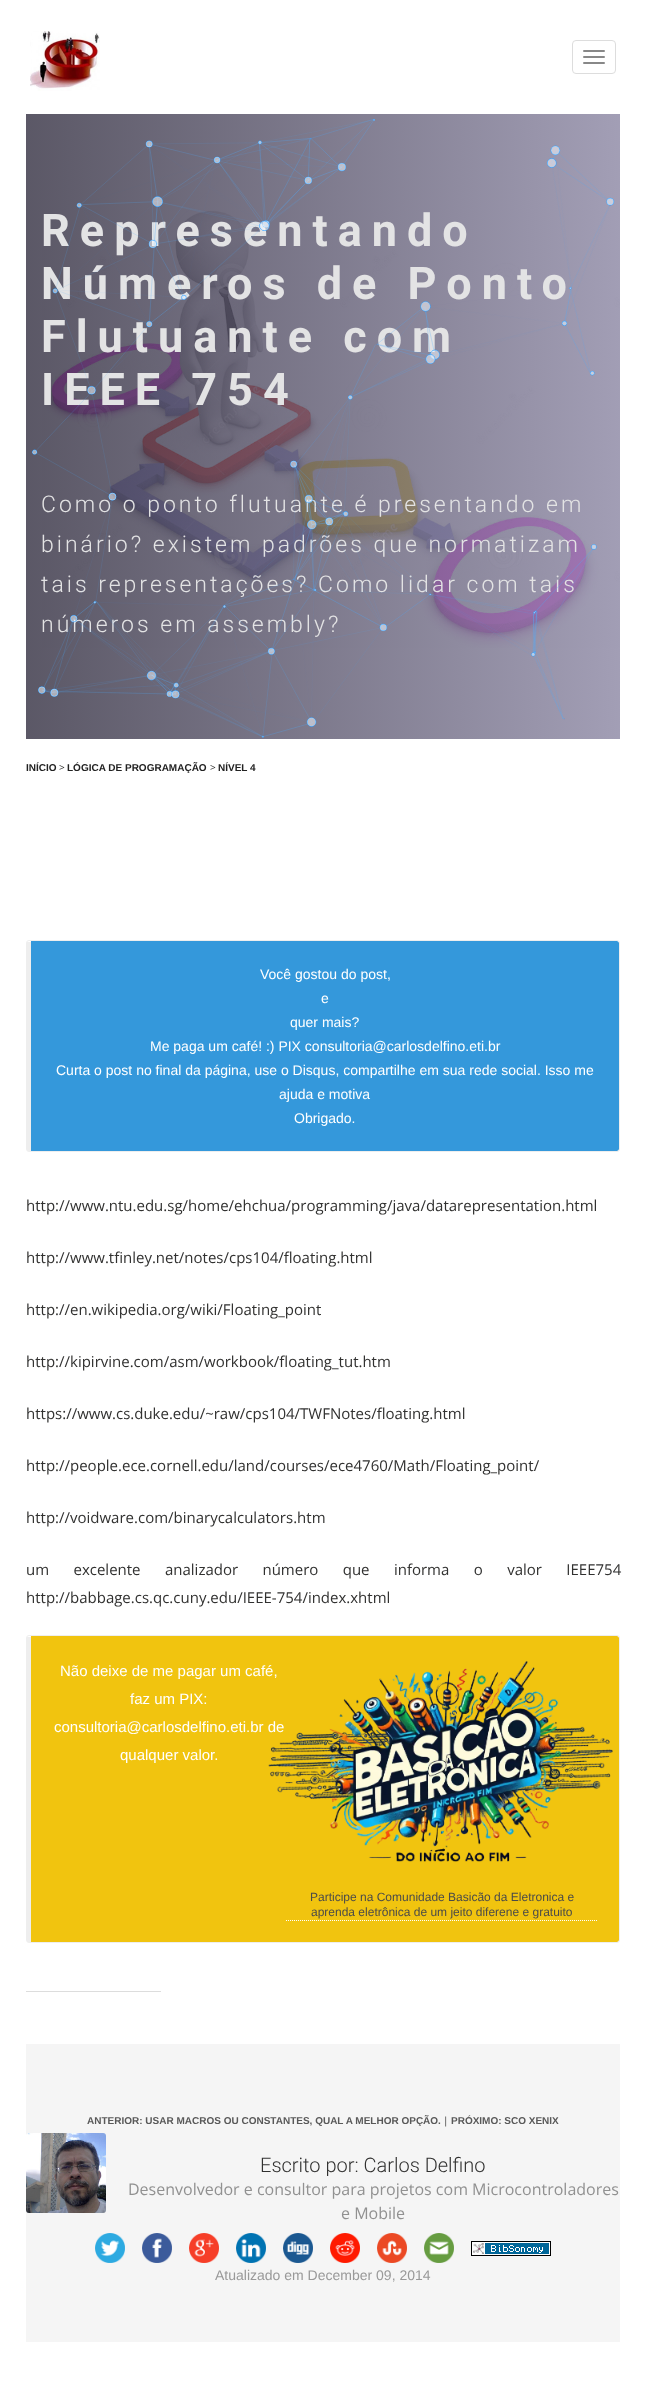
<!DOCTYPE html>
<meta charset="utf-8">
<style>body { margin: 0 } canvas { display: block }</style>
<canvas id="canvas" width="646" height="2394"></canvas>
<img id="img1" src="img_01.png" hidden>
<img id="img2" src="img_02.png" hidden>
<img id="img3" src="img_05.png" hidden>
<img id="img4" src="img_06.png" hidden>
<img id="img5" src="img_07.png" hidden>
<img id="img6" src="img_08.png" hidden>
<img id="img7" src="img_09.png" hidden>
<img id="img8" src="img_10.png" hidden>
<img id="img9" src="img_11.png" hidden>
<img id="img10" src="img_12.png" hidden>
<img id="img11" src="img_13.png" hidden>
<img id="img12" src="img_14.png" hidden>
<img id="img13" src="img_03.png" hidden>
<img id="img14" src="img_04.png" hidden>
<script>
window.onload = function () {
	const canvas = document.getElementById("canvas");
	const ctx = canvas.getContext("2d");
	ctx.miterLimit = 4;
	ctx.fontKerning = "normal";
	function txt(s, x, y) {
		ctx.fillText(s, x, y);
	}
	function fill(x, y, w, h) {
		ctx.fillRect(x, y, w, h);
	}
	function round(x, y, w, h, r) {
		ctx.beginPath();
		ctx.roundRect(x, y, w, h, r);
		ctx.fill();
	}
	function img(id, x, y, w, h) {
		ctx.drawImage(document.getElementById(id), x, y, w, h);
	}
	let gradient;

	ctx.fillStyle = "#FFFFFF";
	fill(0, 0, 646, 2394);
	img("img1", 30, 31, 70, 60);
	ctx.beginPath();
	ctx.roundRect(572.5, 40.5, 43, 33, 3.5);
	ctx.strokeStyle = "#DDDDDD";
	ctx.stroke();
	ctx.fillStyle = "#888888";
	round(583, 50, 22, 2, 1);
	round(583, 56, 22, 2, 1);
	round(583, 62, 22, 2, 1);
	img("img2", 42, 210, 578, 438);
	gradient = ctx.createLinearGradient(620, 427, 26, 427);
	gradient.addColorStop(0, "rgba(139, 134, 163, 0.8)");
	gradient.addColorStop(1, "rgba(50, 46, 64, 0.8)");
	ctx.fillStyle = gradient;
	fill(26, 114, 594, 625);
	ctx.fillStyle = "#3498DB";
	ctx.beginPath();
	ctx.moveTo(31, 941);
	ctx.lineTo(617, 941);
	ctx.bezierCurveTo(618, 941, 619, 942, 619, 943);
	ctx.lineTo(619, 1149);
	ctx.bezierCurveTo(619, 1150, 618, 1151, 617, 1151);
	ctx.lineTo(31, 1151);
	ctx.closePath();
	ctx.fill();
	ctx.beginPath();
	ctx.roundRect(26.5, 940.5, 593, 211, 2.5);
	ctx.strokeStyle = "#EEEEEE";
	ctx.stroke();
	ctx.fillStyle = "#EEEEEE";
	fill(27, 942, 4, 209);
	ctx.fillStyle = "#F1C40F";
	ctx.beginPath();
	ctx.moveTo(31, 1636);
	ctx.lineTo(617, 1636);
	ctx.bezierCurveTo(618, 1636, 619, 1637, 619, 1638);
	ctx.lineTo(619, 1940);
	ctx.bezierCurveTo(619, 1941, 618, 1942, 617, 1942);
	ctx.lineTo(31, 1942);
	ctx.closePath();
	ctx.fill();
	ctx.beginPath();
	ctx.roundRect(26.5, 1635.5, 593, 307, 2.5);
	ctx.stroke();
	ctx.fillStyle = "#EEEEEE";
	fill(27, 1637, 4, 305);
	ctx.beginPath();
	ctx.moveTo(286, 1920.5);
	ctx.lineTo(598, 1920.5);
	ctx.strokeStyle = "#FFFFFF";
	ctx.setLineDash([1, 1]);
	ctx.stroke();
	ctx.fillStyle = "#DDDDDD";
	fill(26, 1991, 135, 1);
	ctx.fillStyle = "#F5F5F5";
	fill(26, 2044, 594, 298);
	img("img3", 26, 2133, 80, 80);
	img("img4", 95, 2233, 30, 30);
	img("img5", 142, 2233, 30, 30);
	img("img6", 189, 2233, 30, 30);
	img("img7", 236, 2233, 30, 30);
	img("img8", 283, 2233, 30, 30);
	img("img9", 330, 2233, 30, 30);
	img("img10", 377, 2233, 30, 30);
	img("img11", 424, 2233, 30, 30);
	img("img12", 471, 2241, 80, 15);
	ctx.letterSpacing = "10px";
	ctx.font = "bold 45px Roboto";
	ctx.fillStyle = "#E3E3E4";
	txt("Representando", 41, 246);
	txt("Números de Ponto", 41, 299);
	txt("Flutuante com", 41, 352);
	txt("IEEE 754", 41, 405);
	ctx.letterSpacing = "3px";
	ctx.font = "300 23px Roboto";
	txt("Como o ponto flutuante é presentando em", 41, 512);
	txt("binário? existem padrões que normatizam", 41, 552);
	txt("tais representações? Como lidar com tais", 41, 592);
	txt("números em assembly?", 41, 632);
	img("img13", 32, 118, 583, 620);
	ctx.letterSpacing = "0px";
	ctx.font = "bold 10px Liberation Sans";
	ctx.fillStyle = "#222222";
	txt("INÍCIO", 26, 771);
	ctx.font = "10px Open Sans";
	ctx.fillStyle = "#313130";
	txt(">", 59, 771);
	ctx.font = "bold 10px Liberation Sans";
	ctx.fillStyle = "#222222";
	txt("LÓGICA DE PROGRAMAÇÃO", 67, 771);
	ctx.font = "10px Open Sans";
	ctx.fillStyle = "#313130";
	txt(">", 210, 771);
	ctx.font = "bold 10px Liberation Sans";
	ctx.fillStyle = "#222222";
	txt("NÍVEL 4", 218, 771);
	ctx.font = "14px Liberation Sans";
	ctx.fillStyle = "#FFFFFF";
	txt("Você gostou do post,", 260, 979);
	txt("e", 321, 1003);
	txt("quer mais?", 290, 1027);
	txt("Me paga um café! :) PIX consultoria@carlosdelfino.eti.br", 150, 1051);
	txt("Curta o post no final da página, use o Disqus, compartilhe em sua rede social. Isso me", 56, 1075);
	txt("ajuda e motiva", 279, 1099);
	txt("Obrigado.", 294, 1123);
	ctx.font = "15px Open Sans";
	ctx.fillStyle = "#313130";
	txt("http://www.ntu.edu.sg/home/ehchua/programming/java/datarepresentation.html", 26, 1211);
	txt("http://www.tfinley.net/notes/cps104/floating.html", 26, 1263);
	txt("http://en.wikipedia.org/wiki/Floating_point", 26, 1315);
	txt("http://kipirvine.com/asm/workbook/floating_tut.htm", 26, 1367);
	txt("https://www.cs.duke.edu/~raw/cps104/TWFNotes/floating.html", 26, 1419);
	txt("http://people.ece.cornell.edu/land/courses/ece4760/Math/Floating_point/", 26, 1471);
	txt("http://voidware.com/binarycalculators.htm", 26, 1523);
	ctx.wordSpacing = "20.5px";
	txt("um excelente analizador número que informa o valor IEEE754", 26, 1575);
	ctx.wordSpacing = "0px";
	txt("http://babbage.cs.qc.cuny.edu/IEEE-754/index.xhtml", 26, 1603);
	ctx.font = "15px Liberation Sans";
	ctx.fillStyle = "#FFFFFF";
	txt("Não deixe de me pagar um café,", 60, 1676);
	txt("faz um PIX:", 130, 1704);
	txt("consultoria@carlosdelfino.eti.br de", 54, 1732);
	txt("qualquer valor.", 120, 1760);
	img("img14", 268, 1661, 345, 201);
	ctx.font = "12px Liberation Sans";
	ctx.fillStyle = "#4B4B49";
	txt("Participe na Comunidade Basicão da Eletronica e", 310, 1901);
	txt("aprenda eletrônica de um jeito diferene e gratuito", 311, 1916);
	ctx.font = "bold 10px Liberation Sans";
	ctx.fillStyle = "#595959";
	txt("ANTERIOR: USAR MACROS OU CONSTANTES, QUAL A MELHOR OPÇÃO.", 87, 2124);
	ctx.font = "10px Open Sans";
	ctx.fillStyle = "#313130";
	txt("|", 443, 2124);
	ctx.font = "bold 10px Liberation Sans";
	ctx.fillStyle = "#595959";
	txt("PRÓXIMO: SCO XENIX", 451, 2124);
	ctx.font = "300 20px Roboto";
	ctx.fillStyle = "#313130";
	txt("Escrito por: Carlos Delfino", 260, 2172);
	ctx.font = "16px Open Sans";
	ctx.fillStyle = "#919191";
	txt("Desenvolvedor e consultor para projetos com Microcontroladores", 128, 2195);
	txt("e Mobile", 341, 2219);
	ctx.font = "14px Liberation Sans";
	ctx.fillStyle = "#999999";
	txt("Atualizado em December 09, 2014", 215, 2280);
};
</script>
